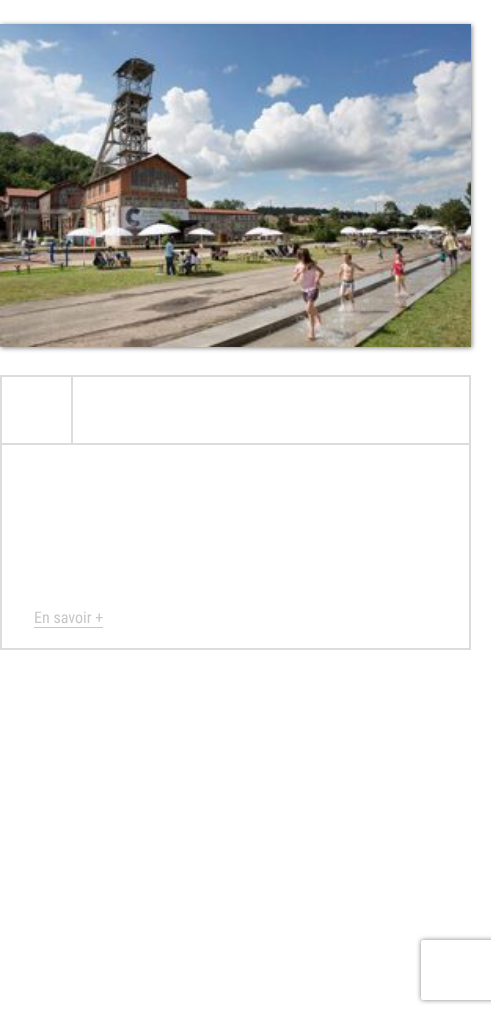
<!DOCTYPE html>
<meta charset="utf-8">
<style>body { margin: 0 } canvas { display: block }</style>
<canvas id="canvas" width="491" height="1014"></canvas>
<img id="img1" src="img_01.png" hidden>
<script>
window.onload = function () {
	const canvas = document.getElementById("canvas");
	const ctx = canvas.getContext("2d");
	ctx.miterLimit = 4;
	ctx.fontKerning = "normal";
	function txt(s, x, y) {
		ctx.fillText(s, x, y);
	}
	function fill(x, y, w, h) {
		ctx.fillRect(x, y, w, h);
	}
	function img(id, x, y, w, h) {
		ctx.drawImage(document.getElementById(id), x, y, w, h);
	}

	ctx.fillStyle = "#FFFFFF";
	fill(0, 0, 491, 1014);
	ctx.fillStyle = "rgba(0, 0, 0, 0.5)";
	ctx.filter = "blur(2.5px)";
	ctx.beginPath();
	ctx.rect(1, 25, 471, 323);
	ctx.fill();
	ctx.filter = "none";
	img("img1", 0, 24, 471, 323);
	ctx.strokeStyle = "#DCDCDC";
	ctx.strokeRect(0.5, 375.5, 470, 274);
	ctx.strokeRect(1.5, 376.5, 70, 67);
	ctx.strokeRect(72.5, 376.5, 397, 67);
	ctx.fillStyle = "#DCDCDC";
	fill(1, 444, 469, 1);
	fill(469, 444, 1, 205);
	fill(1, 444, 1, 144);
	fill(1, 648, 469, 1);
	fill(1, 588, 1, 61);
	ctx.fillStyle = "#C7C7C7";
	fill(34, 627, 69, 1);
	ctx.save();
	ctx.beginPath();
	ctx.moveTo(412, 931);
	ctx.lineTo(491, 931);
	ctx.lineTo(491, 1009);
	ctx.lineTo(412, 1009);
	ctx.closePath();
	ctx.moveTo(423, 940);
	ctx.lineTo(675, 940);
	ctx.bezierCurveTo(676, 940, 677, 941, 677, 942);
	ctx.lineTo(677, 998);
	ctx.bezierCurveTo(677, 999, 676, 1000, 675, 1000);
	ctx.lineTo(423, 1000);
	ctx.bezierCurveTo(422, 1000, 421, 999, 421, 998);
	ctx.lineTo(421, 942);
	ctx.bezierCurveTo(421, 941, 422, 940, 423, 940);
	ctx.closePath();
	ctx.clip("evenodd");
	ctx.fillStyle = "#808080";
	ctx.filter = "blur(2.5px)";
	ctx.beginPath();
	ctx.roundRect(421, 940, 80, 60, 2);
	ctx.fill();
	ctx.filter = "none";
	ctx.restore();
	ctx.font = "16px Roboto Condensed";
	txt("En savoir +", 34, 623);
};
</script>
